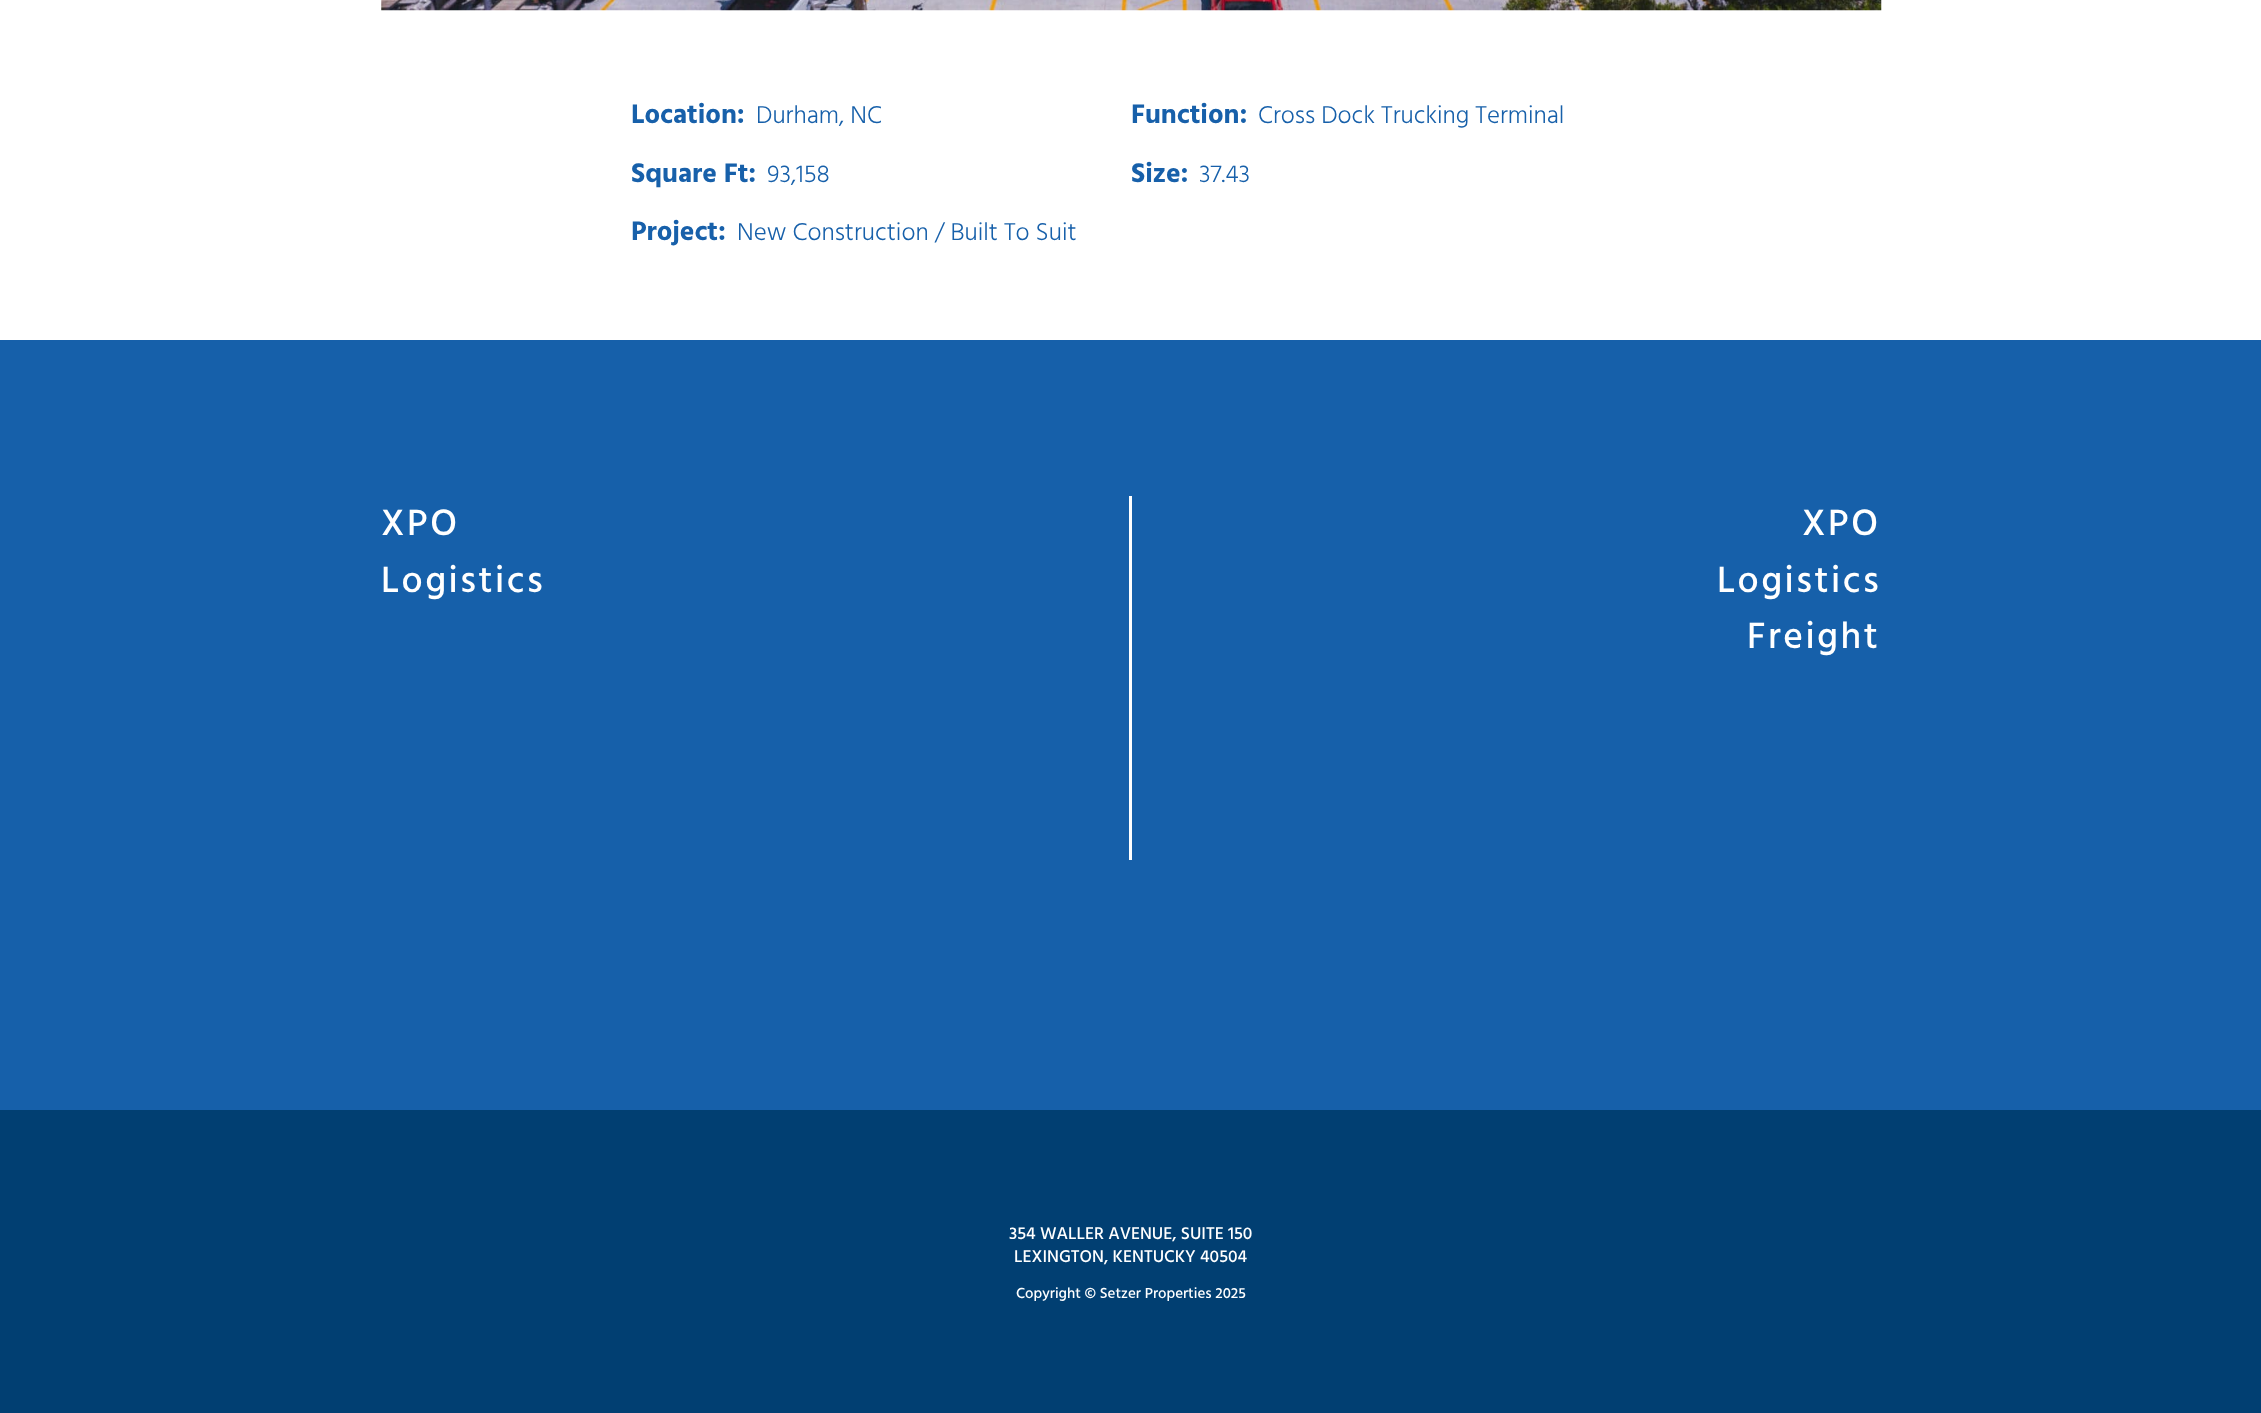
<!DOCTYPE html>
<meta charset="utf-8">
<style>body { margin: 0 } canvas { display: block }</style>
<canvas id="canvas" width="2261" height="1413"></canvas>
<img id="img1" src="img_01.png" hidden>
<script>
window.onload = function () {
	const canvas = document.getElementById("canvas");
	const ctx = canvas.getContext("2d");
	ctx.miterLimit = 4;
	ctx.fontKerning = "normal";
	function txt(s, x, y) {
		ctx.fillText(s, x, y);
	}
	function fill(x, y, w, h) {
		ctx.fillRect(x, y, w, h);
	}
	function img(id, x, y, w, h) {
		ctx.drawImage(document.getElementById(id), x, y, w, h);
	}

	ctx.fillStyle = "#FFFFFF";
	fill(0, 0, 2261, 1413);
	img("img1", 381, 0, 1501, 11);
	ctx.fillStyle = "#1660AA";
	fill(0, 340, 2261, 770);
	ctx.fillStyle = "#FFFFFF";
	fill(1129, 496, 3, 364);
	ctx.fillStyle = "#013F72";
	fill(0, 1110, 2261, 303);
	ctx.font = "bold 27.5px Hind Madurai";
	ctx.fillStyle = "#1760AA";
	txt("Location:", 631, 123);
	ctx.font = "300 25px Hind Madurai";
	txt("Durham, NC", 756, 123);
	ctx.font = "bold 27.5px Hind Madurai";
	txt("Function:", 1131, 123);
	ctx.font = "300 25px Hind Madurai";
	txt("Cross Dock Trucking Terminal", 1258, 123);
	ctx.font = "bold 27.5px Hind Madurai";
	txt("Square Ft:", 631, 182);
	ctx.font = "300 25px Hind Madurai";
	txt("93,158", 767, 182);
	ctx.font = "bold 27.5px Hind Madurai";
	txt("Size:", 1131, 182);
	ctx.font = "300 25px Hind Madurai";
	txt("37.43", 1199, 182);
	ctx.font = "bold 27.5px Hind Madurai";
	txt("Project:", 631, 240);
	ctx.font = "300 25px Hind Madurai";
	txt("New Construction / Built To Suit", 737, 240);
	ctx.letterSpacing = "2.5px";
	ctx.font = "500 37.5px Hind Madurai";
	ctx.fillStyle = "#FFFFFF";
	txt("XPO", 381, 535);
	txt("Logistics", 381, 592);
	txt("XPO", 1802, 535);
	txt("Logistics", 1717, 592);
	txt("Freight", 1747, 648);
	ctx.letterSpacing = "0px";
	ctx.font = "500 17.5px Hind Madurai";
	txt("354 WALLER AVENUE, SUITE 150", 1009, 1239);
	txt("LEXINGTON, KENTUCKY 40504", 1014, 1262);
	ctx.font = "500 15px Hind Madurai";
	txt("Copyright © Setzer Properties 2025", 1016, 1298);
};
</script>
